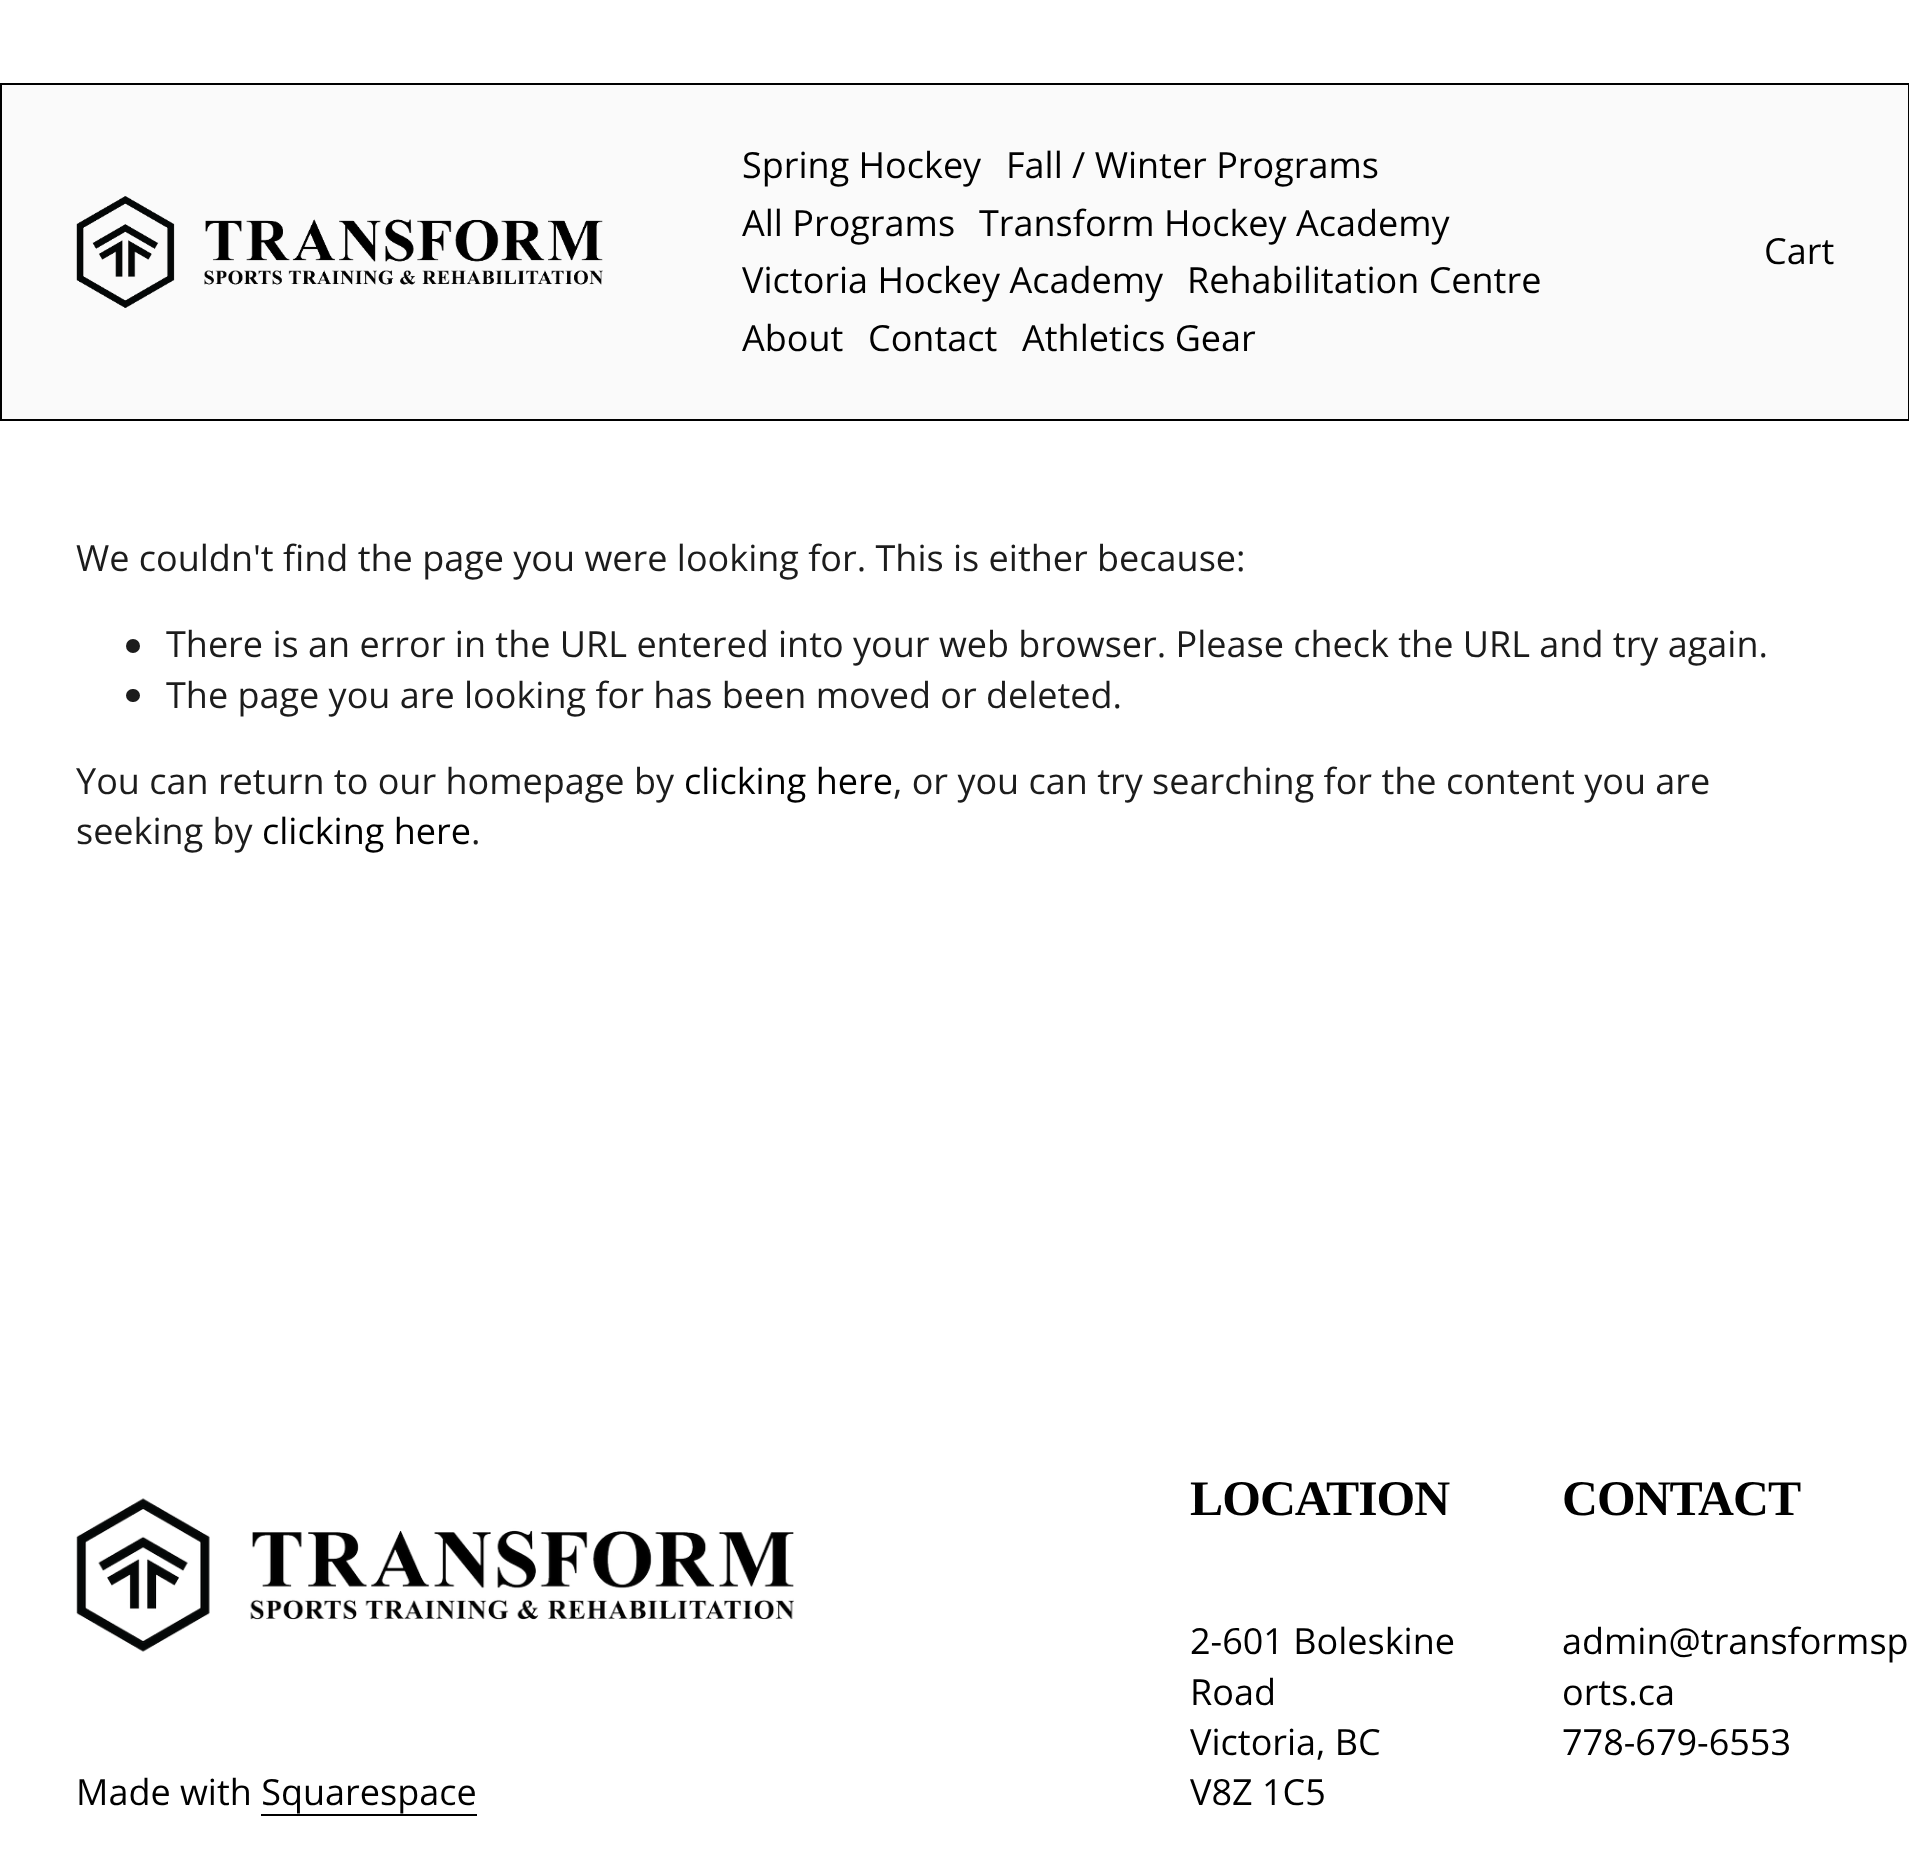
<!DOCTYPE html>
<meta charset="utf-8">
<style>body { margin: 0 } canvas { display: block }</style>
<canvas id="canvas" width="1909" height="1865"></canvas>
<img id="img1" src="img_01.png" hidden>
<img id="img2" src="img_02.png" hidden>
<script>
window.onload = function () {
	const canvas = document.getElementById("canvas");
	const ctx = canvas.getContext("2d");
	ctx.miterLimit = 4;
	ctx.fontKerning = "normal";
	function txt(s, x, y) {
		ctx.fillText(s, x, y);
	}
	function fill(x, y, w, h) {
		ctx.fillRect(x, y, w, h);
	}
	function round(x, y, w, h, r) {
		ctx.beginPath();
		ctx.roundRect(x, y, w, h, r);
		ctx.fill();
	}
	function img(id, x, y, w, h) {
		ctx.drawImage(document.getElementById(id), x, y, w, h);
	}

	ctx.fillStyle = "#FFFFFF";
	fill(0, 0, 1909, 1865);
	ctx.fillStyle = "#FAFAFA";
	ctx.beginPath();
	ctx.rect(1, 84, 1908, 336);
	ctx.fill();
	ctx.strokeStyle = "#000000";
	ctx.lineWidth = 2;
	ctx.stroke();
	img("img1", 76, 196, 527, 112);
	ctx.fillStyle = "#1C1C1C";
	ctx.beginPath();
	ctx.arc(133, 646, 7, 0, Math.PI * 2);
	ctx.fill();
	round(126, 689, 14, 13, 6.5);
	img("img2", 76, 1498, 719, 154);
	ctx.fillStyle = "#000000";
	fill(261, 1814, 216, 2);
	ctx.font = "36px Open Sans";
	txt("Spring Hockey", 742, 178);
	txt("Fall / Winter Programs", 1006, 178);
	txt("All Programs", 742, 236);
	txt("Transform Hockey Academy", 979, 236);
	txt("Victoria Hockey Academy", 742, 293);
	txt("Rehabilitation Centre", 1187, 293);
	txt("About", 742, 351);
	txt("Contact", 868, 351);
	txt("Athletics Gear", 1022, 351);
	txt("Cart", 1764, 264);
	ctx.fillStyle = "#1C1C1C";
	txt("We couldn't find the page you were looking for. This is either because:", 76, 571);
	txt("There is an error in the URL entered into your web browser. Please check the URL and try again.", 166, 657);
	txt("The page you are looking for has been moved or deleted.", 166, 708);
	txt("You can return to our homepage by", 76, 794);
	ctx.fillStyle = "#000000";
	txt("clicking here", 684, 794);
	ctx.fillStyle = "#1C1C1C";
	txt(", or you can try searching for the content you are", 893, 794);
	txt("seeking by", 76, 844);
	ctx.fillStyle = "#000000";
	txt("clicking here", 262, 844);
	ctx.fillStyle = "#1C1C1C";
	txt(".", 471, 844);
	ctx.letterSpacing = "-1px";
	ctx.font = "bold 49.75px Liberation Serif";
	ctx.fillStyle = "#000000";
	txt("LOCATION", 1190, 1515);
	ctx.letterSpacing = "0px";
	ctx.font = "36px Open Sans";
	txt("2-601 Boleskine", 1190, 1654);
	txt("Road", 1190, 1705);
	txt("Victoria, BC", 1190, 1755);
	txt("V8Z 1C5", 1190, 1805);
	ctx.letterSpacing = "-1px";
	ctx.font = "bold 49.75px Liberation Serif";
	txt("CONTACT", 1562, 1515);
	ctx.letterSpacing = "0px";
	ctx.font = "36px Open Sans";
	txt("admin@transformsp", 1562, 1654);
	txt("orts.ca", 1562, 1705);
	txt("778-679-6553", 1562, 1755);
	txt("Made with Squarespace", 76, 1805);
};
</script>
